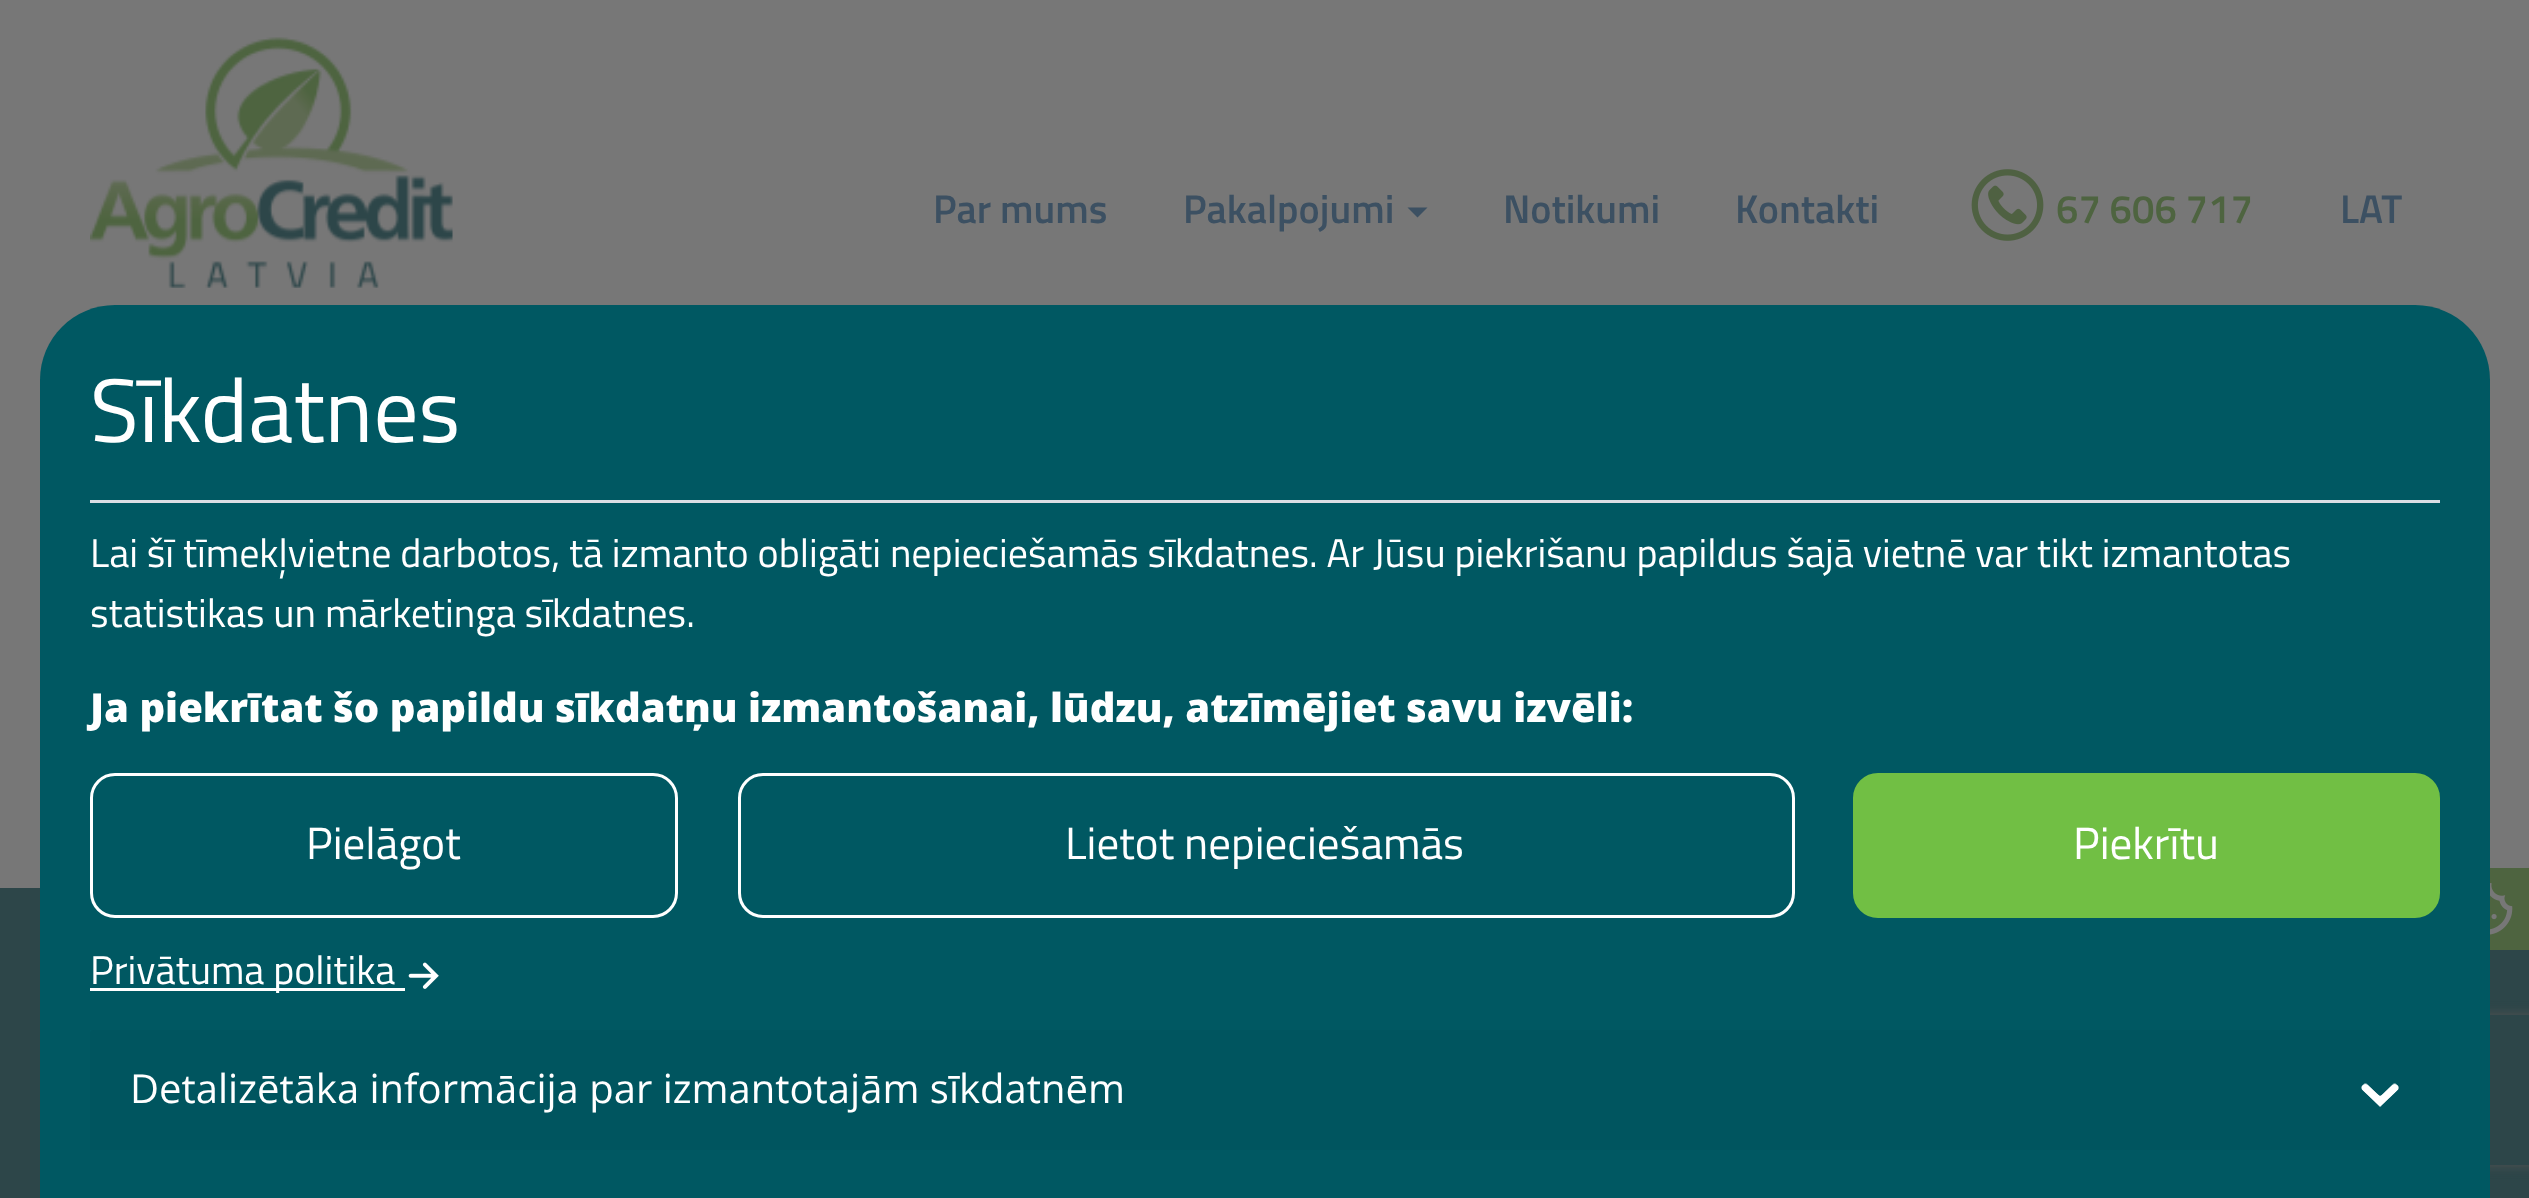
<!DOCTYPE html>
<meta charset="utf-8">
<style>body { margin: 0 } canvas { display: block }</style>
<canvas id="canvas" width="2529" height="1198"></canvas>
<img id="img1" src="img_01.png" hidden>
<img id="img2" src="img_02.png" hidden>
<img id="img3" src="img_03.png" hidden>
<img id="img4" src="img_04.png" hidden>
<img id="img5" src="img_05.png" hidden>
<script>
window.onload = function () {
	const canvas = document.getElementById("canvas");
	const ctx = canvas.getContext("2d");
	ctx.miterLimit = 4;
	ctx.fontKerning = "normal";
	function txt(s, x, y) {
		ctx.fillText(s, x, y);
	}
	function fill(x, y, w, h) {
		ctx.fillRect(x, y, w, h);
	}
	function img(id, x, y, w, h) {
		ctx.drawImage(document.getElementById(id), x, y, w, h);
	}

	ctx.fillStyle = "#777777";
	fill(0, 0, 2529, 1198);
	img("img1", 90, 37, 363, 251);
	ctx.fillStyle = "#3C5062";
	ctx.beginPath();
	ctx.moveTo(1407.5, 207.5);
	ctx.lineTo(1427.5, 207.5);
	ctx.lineTo(1417.5, 217.5);
	ctx.closePath();
	ctx.fill();
	img("img2", 1971, 169, 73, 72);
	ctx.fillStyle = "#2D4649";
	fill(0, 888, 2529, 310);
	ctx.save();
	ctx.beginPath();
	ctx.moveTo(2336, 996);
	ctx.lineTo(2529, 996);
	ctx.lineTo(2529, 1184);
	ctx.lineTo(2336, 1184);
	ctx.closePath();
	ctx.moveTo(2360, 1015);
	ctx.lineTo(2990, 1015);
	ctx.bezierCurveTo(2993, 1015, 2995, 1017, 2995, 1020);
	ctx.lineTo(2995, 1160);
	ctx.bezierCurveTo(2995, 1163, 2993, 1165, 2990, 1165);
	ctx.lineTo(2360, 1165);
	ctx.bezierCurveTo(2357, 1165, 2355, 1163, 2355, 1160);
	ctx.lineTo(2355, 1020);
	ctx.bezierCurveTo(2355, 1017, 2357, 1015, 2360, 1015);
	ctx.closePath();
	ctx.clip("evenodd");
	ctx.fillStyle = "#525252";
	ctx.filter = "blur(6px)";
	ctx.beginPath();
	ctx.roundRect(2355, 1015, 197, 150, 5);
	ctx.fill();
	ctx.filter = "none";
	ctx.restore();
	ctx.fillStyle = "#005862";
	ctx.beginPath();
	ctx.moveTo(115, 305);
	ctx.lineTo(2415, 305);
	ctx.bezierCurveTo(2456.5, 305, 2490, 338.5, 2490, 380);
	ctx.lineTo(2490, 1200);
	ctx.lineTo(40, 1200);
	ctx.lineTo(40, 380);
	ctx.bezierCurveTo(40, 338.5, 73.5, 305, 115, 305);
	ctx.closePath();
	ctx.fill();
	ctx.fillStyle = "#DBDEE4";
	fill(90, 500, 2350, 3);
	ctx.beginPath();
	ctx.roundRect(91.5, 774.5, 585, 142, 23.5);
	ctx.strokeStyle = "#FFFFFF";
	ctx.lineWidth = 3;
	ctx.stroke();
	ctx.beginPath();
	ctx.roundRect(739.5, 774.5, 1054, 142, 23.5);
	ctx.stroke();
	ctx.fillStyle = "#71BF44";
	ctx.beginPath();
	ctx.roundRect(1854.5, 774.5, 584, 142, 23.5);
	ctx.fill();
	ctx.strokeStyle = "#71BF44";
	ctx.stroke();
	ctx.fillStyle = "#FFFFFF";
	fill(90, 988, 315, 3);
	img("img3", 408, 962, 31, 27);
	ctx.fillStyle = "#00555F";
	ctx.beginPath();
	ctx.roundRect(90, 1030, 2350, 120, [4, 4, 0, 0]);
	ctx.fill();
	img("img4", 2361, 1083, 38, 24);
	ctx.fillStyle = "#4E6440";
	fill(2490, 868, 39, 82);
	img("img5", 2490, 883, 23, 52);
	ctx.font = "600 40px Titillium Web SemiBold";
	ctx.fillStyle = "#3C5062";
	txt("Par mums", 933, 223);
	txt("Pakalpojumi", 1183, 223);
	txt("Notikumi", 1503, 223);
	txt("Kontakti", 1735, 223);
	ctx.fillStyle = "#4E6440";
	txt("67 606 717", 2056, 223);
	ctx.fillStyle = "#3C5062";
	txt("LAT", 2340, 223);
	ctx.font = "90px Titillium Web";
	ctx.fillStyle = "#FFFFFF";
	txt("Sīkdatnes", 90, 442);
	ctx.font = "40px Titillium Web";
	txt("Lai šī tīmekļvietne darbotos, tā izmanto obligāti nepieciešamās sīkdatnes. Ar Jūsu piekrišanu papildus šajā vietnē var tikt izmantotas", 90, 567);
	txt("statistikas un mārketinga sīkdatnes.", 90, 627);
	ctx.font = "800 40px Open Sans";
	txt("Ja piekrītat šo papildu sīkdatņu izmantošanai, lūdzu, atzīmējiet savu izvēli:", 90, 722);
	ctx.font = "45px Titillium Web";
	txt("Pielāgot", 306, 859);
	txt("Lietot nepieciešamās", 1065, 859);
	txt("Piekrītu", 2073, 859);
	ctx.font = "40px Titillium Web";
	txt("Privātuma politika", 90, 984);
	ctx.font = "40px Open Sans";
	txt("Detalizētāka informācija par izmantotajām sīkdatnēm", 130, 1103);
};
</script>
